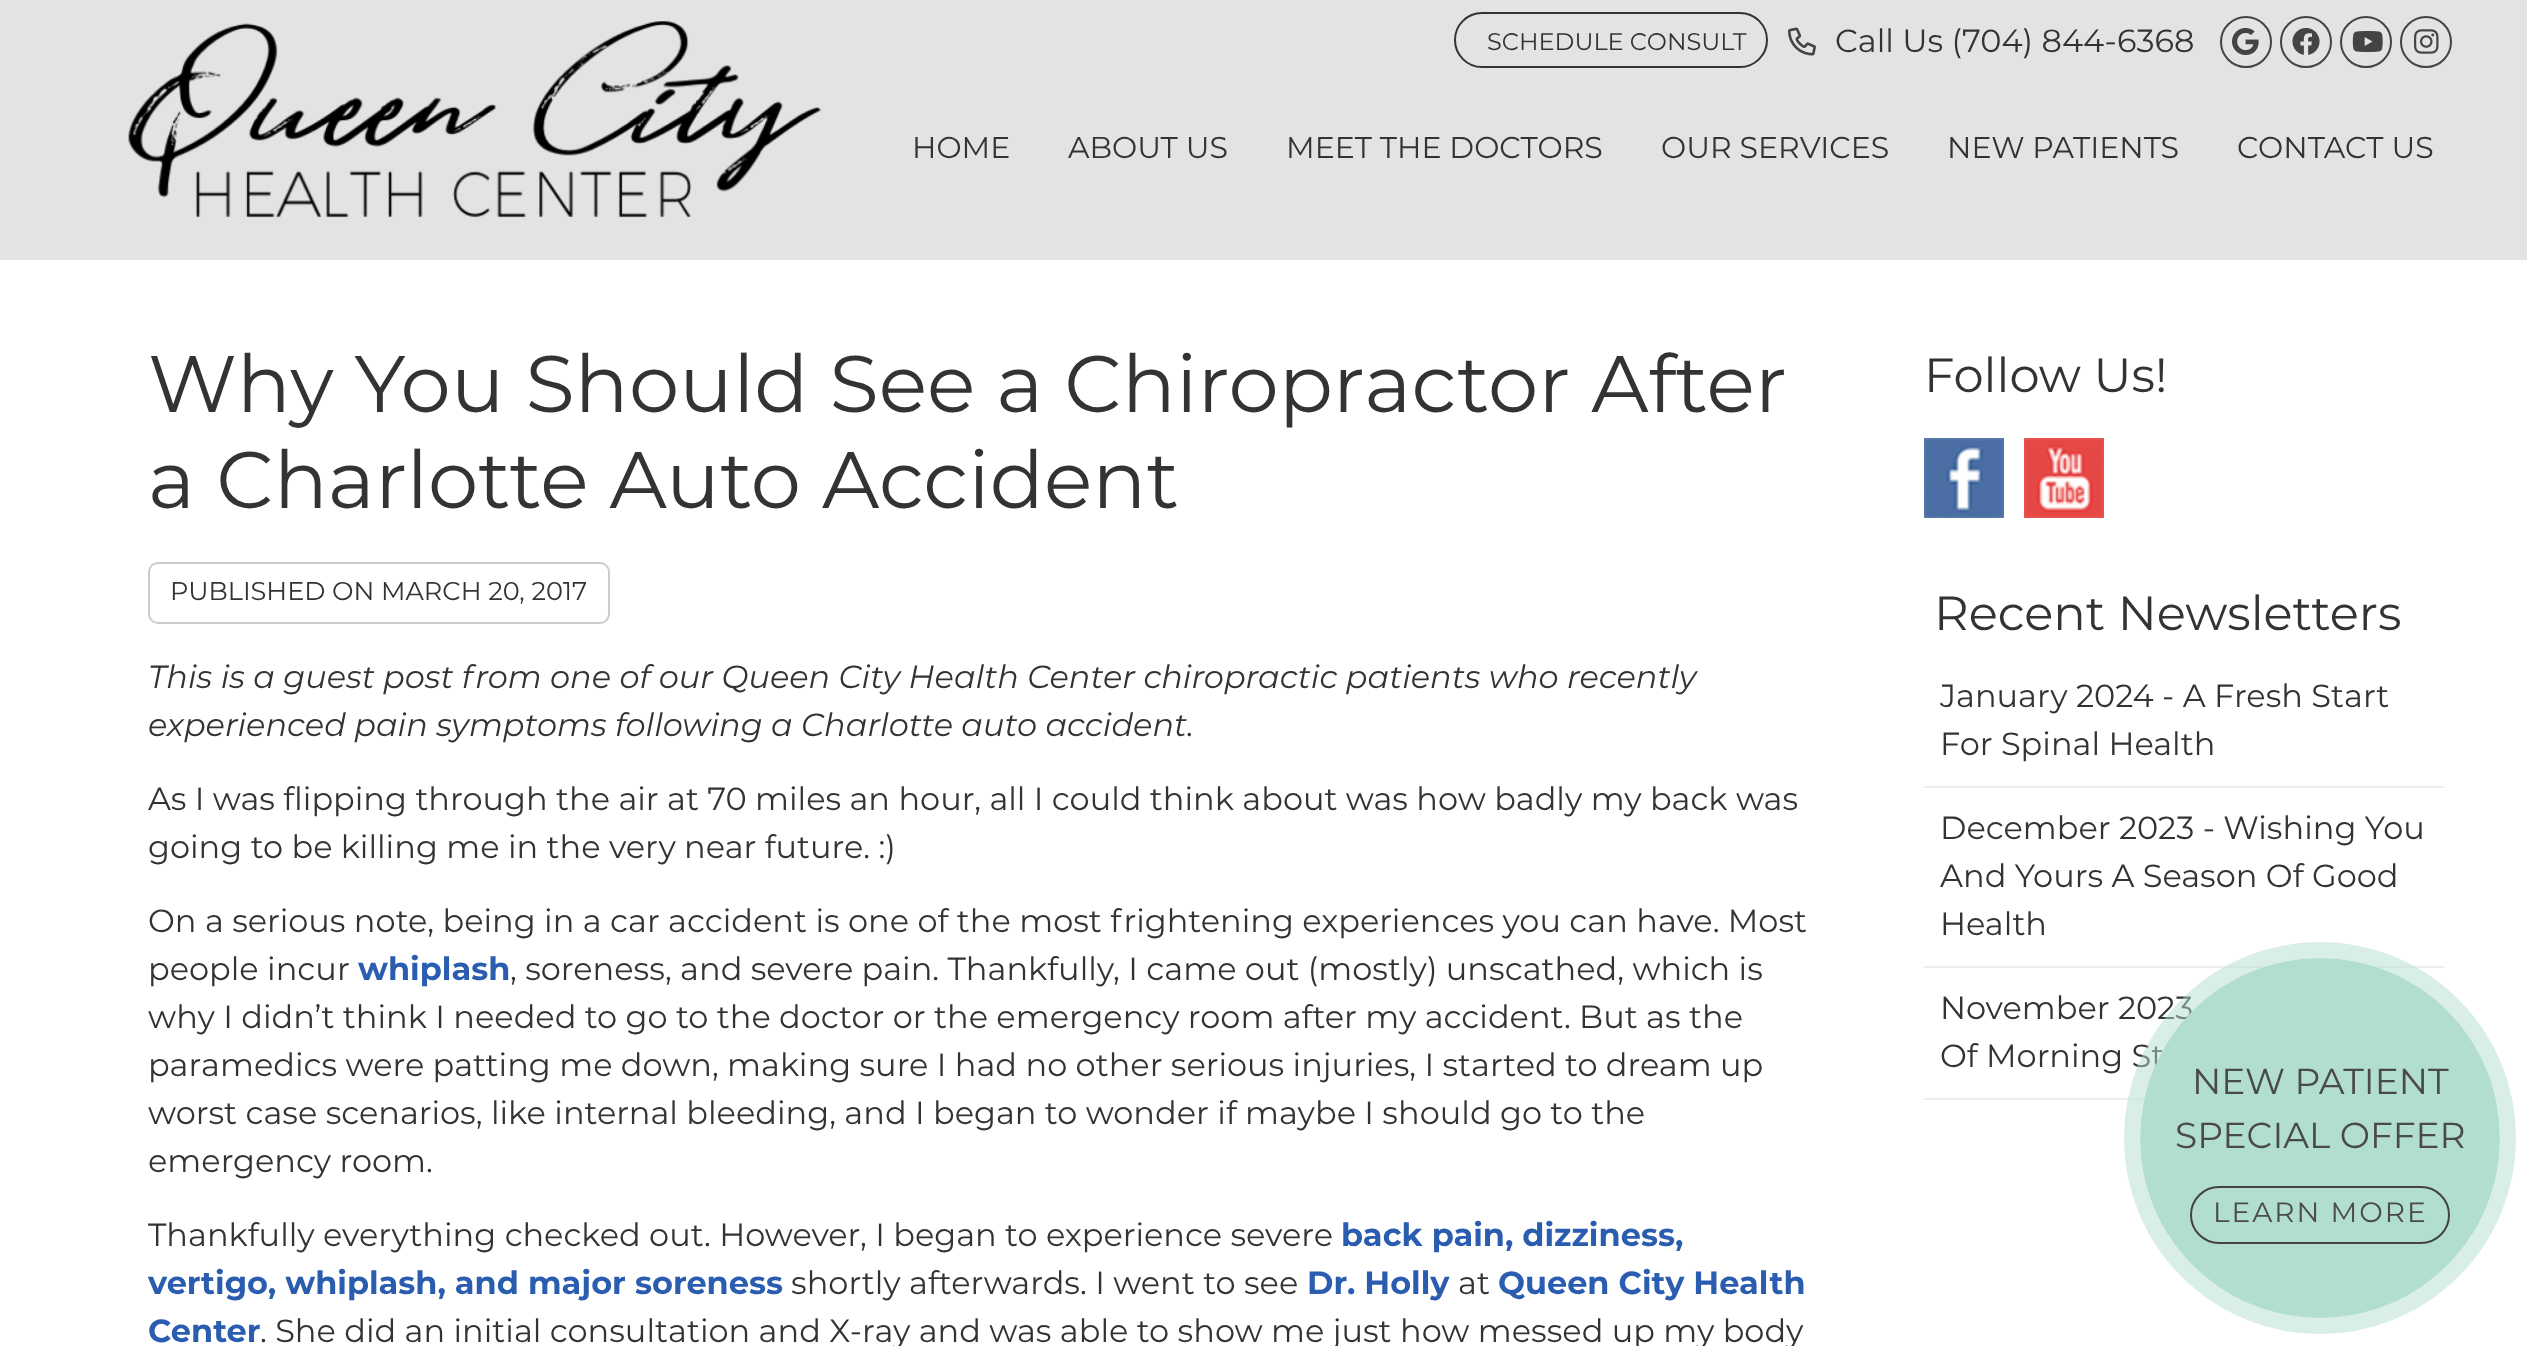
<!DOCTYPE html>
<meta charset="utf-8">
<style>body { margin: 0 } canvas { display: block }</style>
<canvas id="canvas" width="2527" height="1346"></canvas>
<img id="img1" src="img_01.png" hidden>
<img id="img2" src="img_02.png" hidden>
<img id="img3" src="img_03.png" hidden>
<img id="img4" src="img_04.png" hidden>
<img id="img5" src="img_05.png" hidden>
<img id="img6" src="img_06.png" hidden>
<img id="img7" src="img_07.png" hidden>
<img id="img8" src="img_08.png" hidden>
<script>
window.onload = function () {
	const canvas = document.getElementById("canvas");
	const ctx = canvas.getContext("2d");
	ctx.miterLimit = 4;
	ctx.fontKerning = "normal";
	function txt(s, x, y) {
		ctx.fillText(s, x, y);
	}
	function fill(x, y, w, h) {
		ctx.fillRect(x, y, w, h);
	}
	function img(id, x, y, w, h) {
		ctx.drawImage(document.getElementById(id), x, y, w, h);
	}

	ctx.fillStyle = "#FFFFFF";
	fill(0, 0, 2527, 1346);
	ctx.fillStyle = "#E4E3E2";
	fill(0, 0, 2527, 260);
	ctx.beginPath();
	ctx.roundRect(1455, 13, 312, 54, 27);
	ctx.strokeStyle = "#333333";
	ctx.lineWidth = 2;
	ctx.stroke();
	img("img1", 1788, 27, 28, 29);
	ctx.beginPath();
	ctx.arc(2246, 42, 25, 0, Math.PI * 2);
	ctx.strokeStyle = "#444444";
	ctx.stroke();
	img("img2", 2232, 27, 27, 29);
	ctx.beginPath();
	ctx.arc(2306, 42, 25, 0, Math.PI * 2);
	ctx.stroke();
	img("img3", 2292, 27, 28, 28);
	ctx.beginPath();
	ctx.arc(2366, 42, 25, 0, Math.PI * 2);
	ctx.stroke();
	img("img4", 2352, 31, 31, 21);
	ctx.beginPath();
	ctx.arc(2426, 42, 25, 0, Math.PI * 2);
	ctx.stroke();
	img("img5", 2414, 29, 25, 25);
	img("img6", 128, 21, 694, 197);
	ctx.beginPath();
	ctx.roundRect(149, 563, 460, 60, 9);
	ctx.strokeStyle = "#CCCCCC";
	ctx.stroke();
	img("img7", 1924, 438, 80, 80);
	img("img8", 2024, 438, 80, 80);
	ctx.fillStyle = "#EEEEEE";
	fill(1924, 786, 520, 2);
	fill(1924, 966, 520, 2);
	fill(1924, 1098, 221, 2);
	ctx.font = "24px Montserrat";
	ctx.fillStyle = "#333333";
	txt("SCHEDULE CONSULT", 1487, 50);
	ctx.font = "32px Montserrat";
	txt("Call Us (704) 844-6368", 1835, 52);
	ctx.font = "30px Montserrat";
	txt("HOME", 912, 158);
	txt("ABOUT US", 1068, 158);
	txt("MEET THE DOCTORS", 1286, 158);
	txt("OUR SERVICES", 1661, 158);
	txt("NEW PATIENTS", 1947, 158);
	txt("CONTACT US", 2237, 158);
	ctx.font = "80px Montserrat";
	txt("Why You Should See a Chiropractor After", 148, 412);
	txt("a Charlotte Auto Accident", 148, 508);
	ctx.font = "25.6px Montserrat";
	txt("PUBLISHED ON MARCH 20, 2017", 170, 600);
	ctx.font = "italic 32px Montserrat";
	txt("This is a guest post from one of our Queen City Health Center chiropractic patients who recently", 148, 688);
	txt("experienced pain symptoms following a Charlotte auto accident.", 148, 736);
	ctx.font = "32px Montserrat";
	txt("As I was flipping through the air at 70 miles an hour, all I could think about was how badly my back was", 148, 810);
	txt("going to be killing me in the very near future. :)", 148, 858);
	txt("On a serious note, being in a car accident is one of the most frightening experiences you can have. Most", 148, 932);
	txt("people incur", 148, 980);
	ctx.font = "bold 32px Montserrat";
	ctx.fillStyle = "#2A5DB0";
	txt("whiplash", 358, 980);
	ctx.font = "32px Montserrat";
	ctx.fillStyle = "#333333";
	txt(", soreness, and severe pain. Thankfully, I came out (mostly) unscathed, which is", 510, 980);
	txt("why I didn’t think I needed to go to the doctor or the emergency room after my accident. But as the", 148, 1028);
	txt("paramedics were patting me down, making sure I had no other serious injuries, I started to dream up", 148, 1076);
	txt("worst case scenarios, like internal bleeding, and I began to wonder if maybe I should go to the", 148, 1124);
	txt("emergency room.", 148, 1172);
	txt("Thankfully everything checked out. However, I began to experience severe", 148, 1246);
	ctx.font = "bold 32px Montserrat";
	ctx.fillStyle = "#2A5DB0";
	txt("back pain, dizziness,", 1341, 1246);
	txt("vertigo, whiplash, and major soreness", 148, 1294);
	ctx.font = "32px Montserrat";
	ctx.fillStyle = "#333333";
	txt("shortly afterwards. I went to see", 791, 1294);
	ctx.font = "bold 32px Montserrat";
	ctx.fillStyle = "#2A5DB0";
	txt("Dr. Holly", 1307, 1294);
	ctx.font = "32px Montserrat";
	ctx.fillStyle = "#333333";
	txt("at", 1458, 1294);
	ctx.font = "bold 32px Montserrat";
	ctx.fillStyle = "#2A5DB0";
	txt("Queen City Health", 1498, 1294);
	txt("Center", 148, 1342);
	ctx.font = "32px Montserrat";
	ctx.fillStyle = "#333333";
	txt(". She did an initial consultation and X-ray and was able to show me just how messed up my body", 260, 1342);
	ctx.font = "48px Montserrat";
	txt("Follow Us!", 1924, 392);
	txt("Recent Newsletters", 1934, 630);
	ctx.font = "32px Montserrat";
	txt("January 2024 - A Fresh Start", 1940, 707);
	txt("For Spinal Health", 1940, 755);
	txt("December 2023 - Wishing You", 1940, 839);
	txt("And Yours A Season Of Good", 1940, 887);
	txt("Health", 1940, 935);
	txt("November 2023", 1940, 1019);
	txt("Of Morning St", 1940, 1067);
	ctx.beginPath();
	ctx.arc(2320, 1138, 188, 0, Math.PI * 2);
	ctx.strokeStyle = "rgba(178, 222, 205, 0.5)";
	ctx.lineWidth = 16;
	ctx.stroke();
	ctx.fillStyle = "#B2DECD";
	ctx.beginPath();
	ctx.arc(2320, 1138, 180, 0, Math.PI * 2);
	ctx.fill();
	ctx.font = "36px Montserrat";
	ctx.fillStyle = "#4A4A4A";
	txt("NEW PATIENT", 2192, 1094);
	txt("SPECIAL OFFER", 2175, 1148);
	ctx.beginPath();
	ctx.roundRect(2191, 1187, 258, 56, 28);
	ctx.strokeStyle = "#444444";
	ctx.lineWidth = 2;
	ctx.stroke();
	ctx.letterSpacing = "2px";
	ctx.font = "28px Montserrat";
	txt("LEARN MORE", 2213, 1222);
};
</script>
